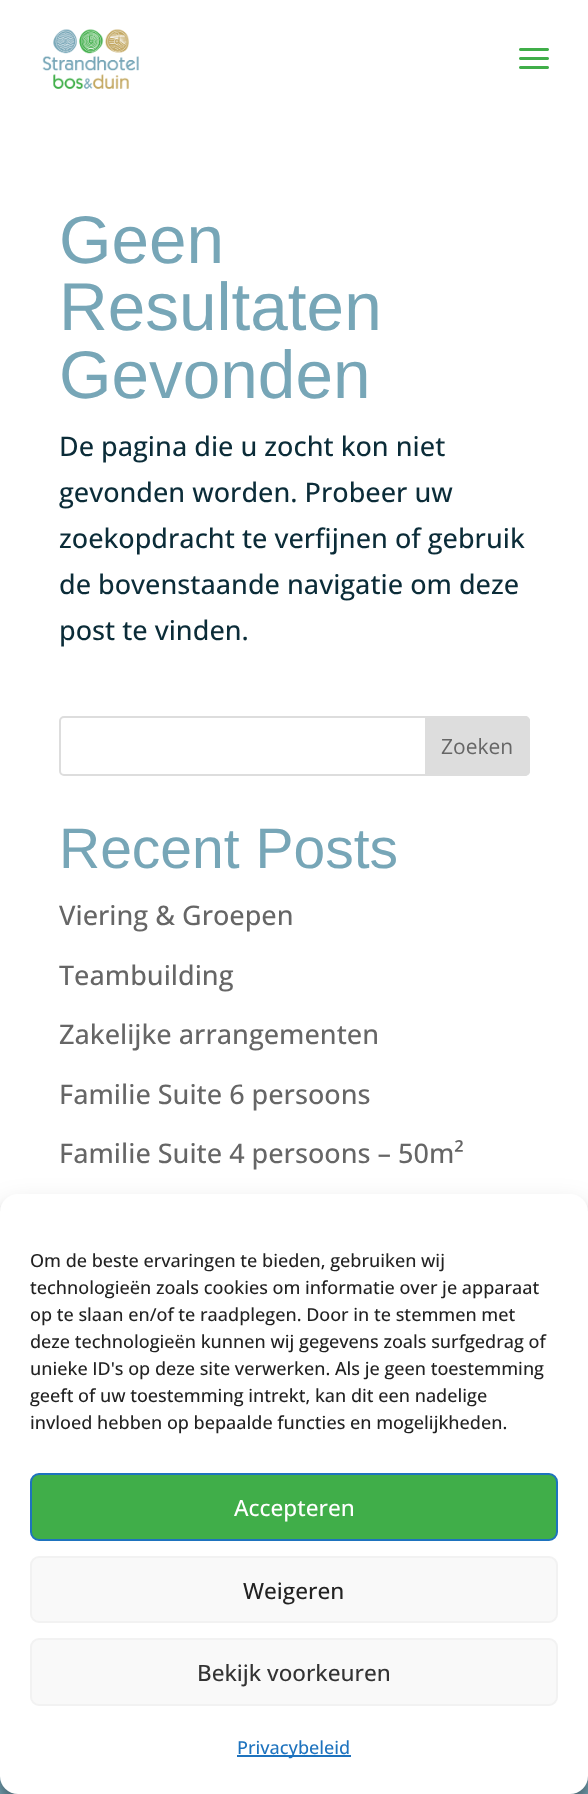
<!DOCTYPE html>
<meta charset="utf-8">
<style>body { margin: 0 } canvas { display: block }</style>
<canvas id="canvas" width="588" height="1794"></canvas>
<img id="img1" src="img_01.png" hidden>
<img id="img2" src="img_02.png" hidden>
<script>
window.onload = function () {
	const canvas = document.getElementById("canvas");
	const ctx = canvas.getContext("2d");
	ctx.miterLimit = 4;
	ctx.fontKerning = "normal";
	function txt(s, x, y) {
		ctx.fillText(s, x, y);
	}
	function fill(x, y, w, h) {
		ctx.fillRect(x, y, w, h);
	}
	function round(x, y, w, h, r) {
		ctx.beginPath();
		ctx.roundRect(x, y, w, h, r);
		ctx.fill();
	}
	function img(id, x, y, w, h) {
		ctx.drawImage(document.getElementById(id), x, y, w, h);
	}

	ctx.fillStyle = "#FFFFFF";
	fill(0, 0, 588, 1794);
	img("img1", 42, 29, 97, 60);
	img("img2", 519, 48, 30, 21);
	ctx.beginPath();
	ctx.roundRect(60, 717, 469, 58, 4);
	ctx.strokeStyle = "#DDDDDD";
	ctx.lineWidth = 2;
	ctx.stroke();
	ctx.fillStyle = "#DDDDDD";
	ctx.beginPath();
	ctx.roundRect(426, 717, 103, 58, [0, 4, 4, 0]);
	ctx.fill();
	ctx.stroke();
	ctx.fillStyle = "#77A6B7";
	fill(0, 1776, 588, 18);
	ctx.fillStyle = "rgba(0, 0, 0, 0.23)";
	ctx.filter = "blur(4.5px)";
	ctx.beginPath();
	ctx.roundRect(0, 1203, 588, 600, 18);
	ctx.fill();
	ctx.filter = "none";
	ctx.fillStyle = "rgba(0, 0, 0, 0.19)";
	ctx.filter = "blur(15px)";
	ctx.beginPath();
	ctx.roundRect(0, 1209, 588, 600, 18);
	ctx.fill();
	ctx.filter = "none";
	ctx.fillStyle = "#FFFFFF";
	round(0, 1194, 588, 600, 18);
	ctx.fillStyle = "#40AE49";
	ctx.beginPath();
	ctx.roundRect(31, 1474, 526, 66, 8);
	ctx.fill();
	ctx.strokeStyle = "#1E73BE";
	ctx.stroke();
	ctx.fillStyle = "#F9F9F9";
	ctx.beginPath();
	ctx.roundRect(31, 1557, 526, 65, 8);
	ctx.fill();
	ctx.strokeStyle = "#F2F2F2";
	ctx.stroke();
	ctx.beginPath();
	ctx.roundRect(31, 1639, 526, 66, 8);
	ctx.fill();
	ctx.stroke();
	ctx.fillStyle = "#1E73BE";
	fill(237, 1755, 114, 2);
	ctx.font = "67.5px Liberation Sans";
	ctx.fillStyle = "#77A6B7";
	txt("Geen", 59, 263);
	txt("Resultaten", 59, 330);
	txt("Gevonden", 59, 398);
	ctx.font = "500 27px Open Sans";
	ctx.fillStyle = "#0B2C38";
	txt("De pagina die u zocht kon niet", 59, 456);
	txt("gevonden worden. Probeer uw", 59, 502);
	txt("zoekopdracht te verfijnen of gebruik", 59, 548);
	txt("de bovenstaande navigatie om deze", 59, 594);
	txt("post te vinden.", 59, 640);
	ctx.font = "21px Open Sans";
	ctx.fillStyle = "#666666";
	txt("Zoeken", 441, 754);
	ctx.font = "57px Liberation Sans";
	ctx.fillStyle = "#77A6B7";
	txt("Recent Posts", 59, 868);
	ctx.font = "500 27px Open Sans";
	ctx.fillStyle = "#666666";
	txt("Viering & Groepen", 59, 925);
	txt("Teambuilding", 59, 985);
	txt("Zakelijke arrangementen", 59, 1044);
	txt("Familie Suite 6 persoons", 59, 1104);
	txt("Familie Suite 4 persoons – 50m²", 59, 1163);
	ctx.font = "500 18px Open Sans";
	ctx.fillStyle = "#222222";
	txt("Om de beste ervaringen te bieden, gebruiken wij", 30, 1267);
	txt("technologieën zoals cookies om informatie over je apparaat", 30, 1294);
	txt("op te slaan en/of te raadplegen. Door in te stemmen met", 30, 1321);
	txt("deze technologieën kunnen wij gegevens zoals surfgedrag of", 30, 1348);
	txt("unieke ID's op deze site verwerken. Als je geen toestemming", 30, 1375);
	txt("geeft of uw toestemming intrekt, kan dit een nadelige", 30, 1402);
	txt("invloed hebben op bepaalde functies en mogelijkheden.", 30, 1429);
	ctx.font = "500 22.5px Open Sans";
	ctx.fillStyle = "#FFFFFF";
	txt("Accepteren", 234, 1516);
	ctx.fillStyle = "#222222";
	txt("Weigeren", 243, 1599);
	ctx.fillStyle = "#333333";
	txt("Bekijk voorkeuren", 197, 1681);
	ctx.font = "500 18px Open Sans";
	ctx.fillStyle = "#1E73BE";
	txt("Privacybeleid", 237, 1754);
};
</script>
